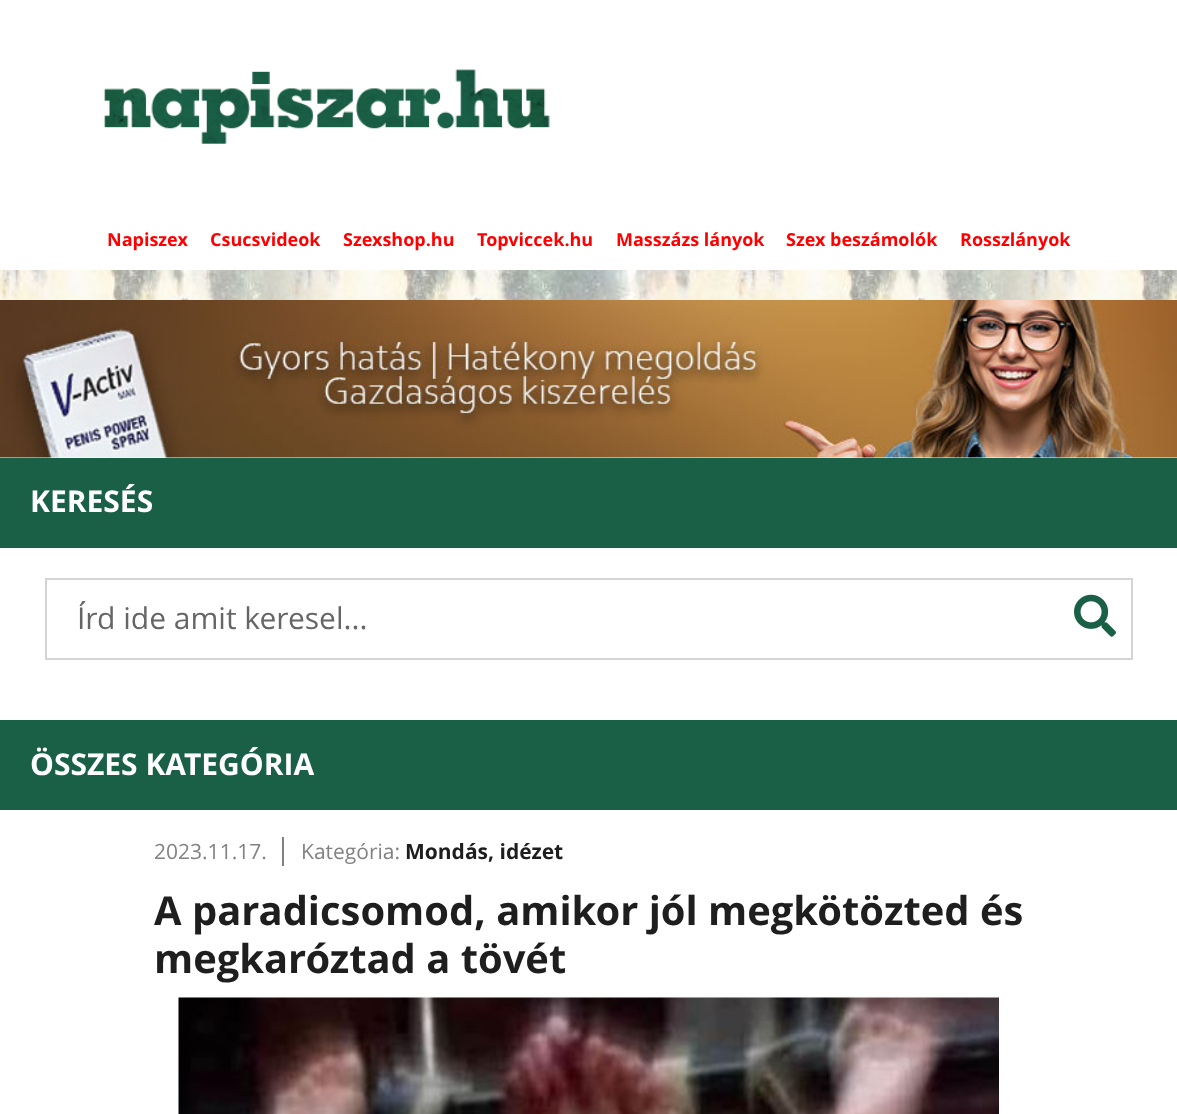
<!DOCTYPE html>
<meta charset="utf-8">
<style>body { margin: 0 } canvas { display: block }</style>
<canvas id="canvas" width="1177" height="1114"></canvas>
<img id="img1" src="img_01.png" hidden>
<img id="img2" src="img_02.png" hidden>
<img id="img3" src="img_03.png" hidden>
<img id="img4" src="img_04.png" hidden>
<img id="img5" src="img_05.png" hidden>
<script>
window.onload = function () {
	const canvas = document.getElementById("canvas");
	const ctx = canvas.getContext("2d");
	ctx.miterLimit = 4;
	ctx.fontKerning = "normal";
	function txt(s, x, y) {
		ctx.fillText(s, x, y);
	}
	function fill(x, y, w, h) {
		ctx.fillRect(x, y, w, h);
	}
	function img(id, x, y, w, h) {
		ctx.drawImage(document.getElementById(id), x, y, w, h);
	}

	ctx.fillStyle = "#FFFFFF";
	fill(0, 0, 1177, 1114);
	img("img1", 103, 69, 447, 75);
	img("img2", 0, 270, 1177, 188);
	img("img3", 0, 300, 1177, 158);
	ctx.fillStyle = "#1A6047";
	fill(0, 458, 1177, 90);
	ctx.strokeStyle = "#D4D4D4";
	ctx.lineWidth = 2;
	ctx.strokeRect(46, 579, 1086, 80);
	img("img4", 1074, 594, 42, 43);
	fill(0, 720, 1177, 90);
	ctx.fillStyle = "#828282";
	fill(282, 837, 2, 29);
	img("img5", 178, 997, 821, 117);
	ctx.font = "bold 18px Open Sans";
	ctx.fillStyle = "#FF0000";
	txt("Napiszex", 107, 246);
	txt("Csucsvideok", 210, 246);
	txt("Szexshop.hu", 343, 246);
	txt("Topviccek.hu", 477, 246);
	txt("Masszázs lányok", 616, 246);
	txt("Szex beszámolók", 786, 246);
	txt("Rosszlányok", 960, 246);
	ctx.font = "bold 30px Open Sans";
	ctx.fillStyle = "#FFFFFF";
	txt("KERESÉS", 30, 512);
	ctx.font = "30px Open Sans";
	ctx.fillStyle = "#666666";
	txt("Írd ide amit keresel...", 77, 629);
	ctx.font = "bold 30px Open Sans";
	ctx.fillStyle = "#FFFFFF";
	txt("ÖSSZES KATEGÓRIA", 30, 775);
	ctx.font = "21px Open Sans";
	ctx.fillStyle = "#828282";
	txt("2023.11.17.", 154, 859);
	txt("Kategória:", 301, 859);
	ctx.font = "bold 21px Open Sans";
	ctx.fillStyle = "#1E1E1E";
	txt("Mondás, idézet", 405, 859);
	ctx.font = "bold 39.9px Open Sans";
	txt("A paradicsomod, amikor jól megkötözted és", 154, 925);
	txt("megkaróztad a tövét", 154, 973);
};
</script>
